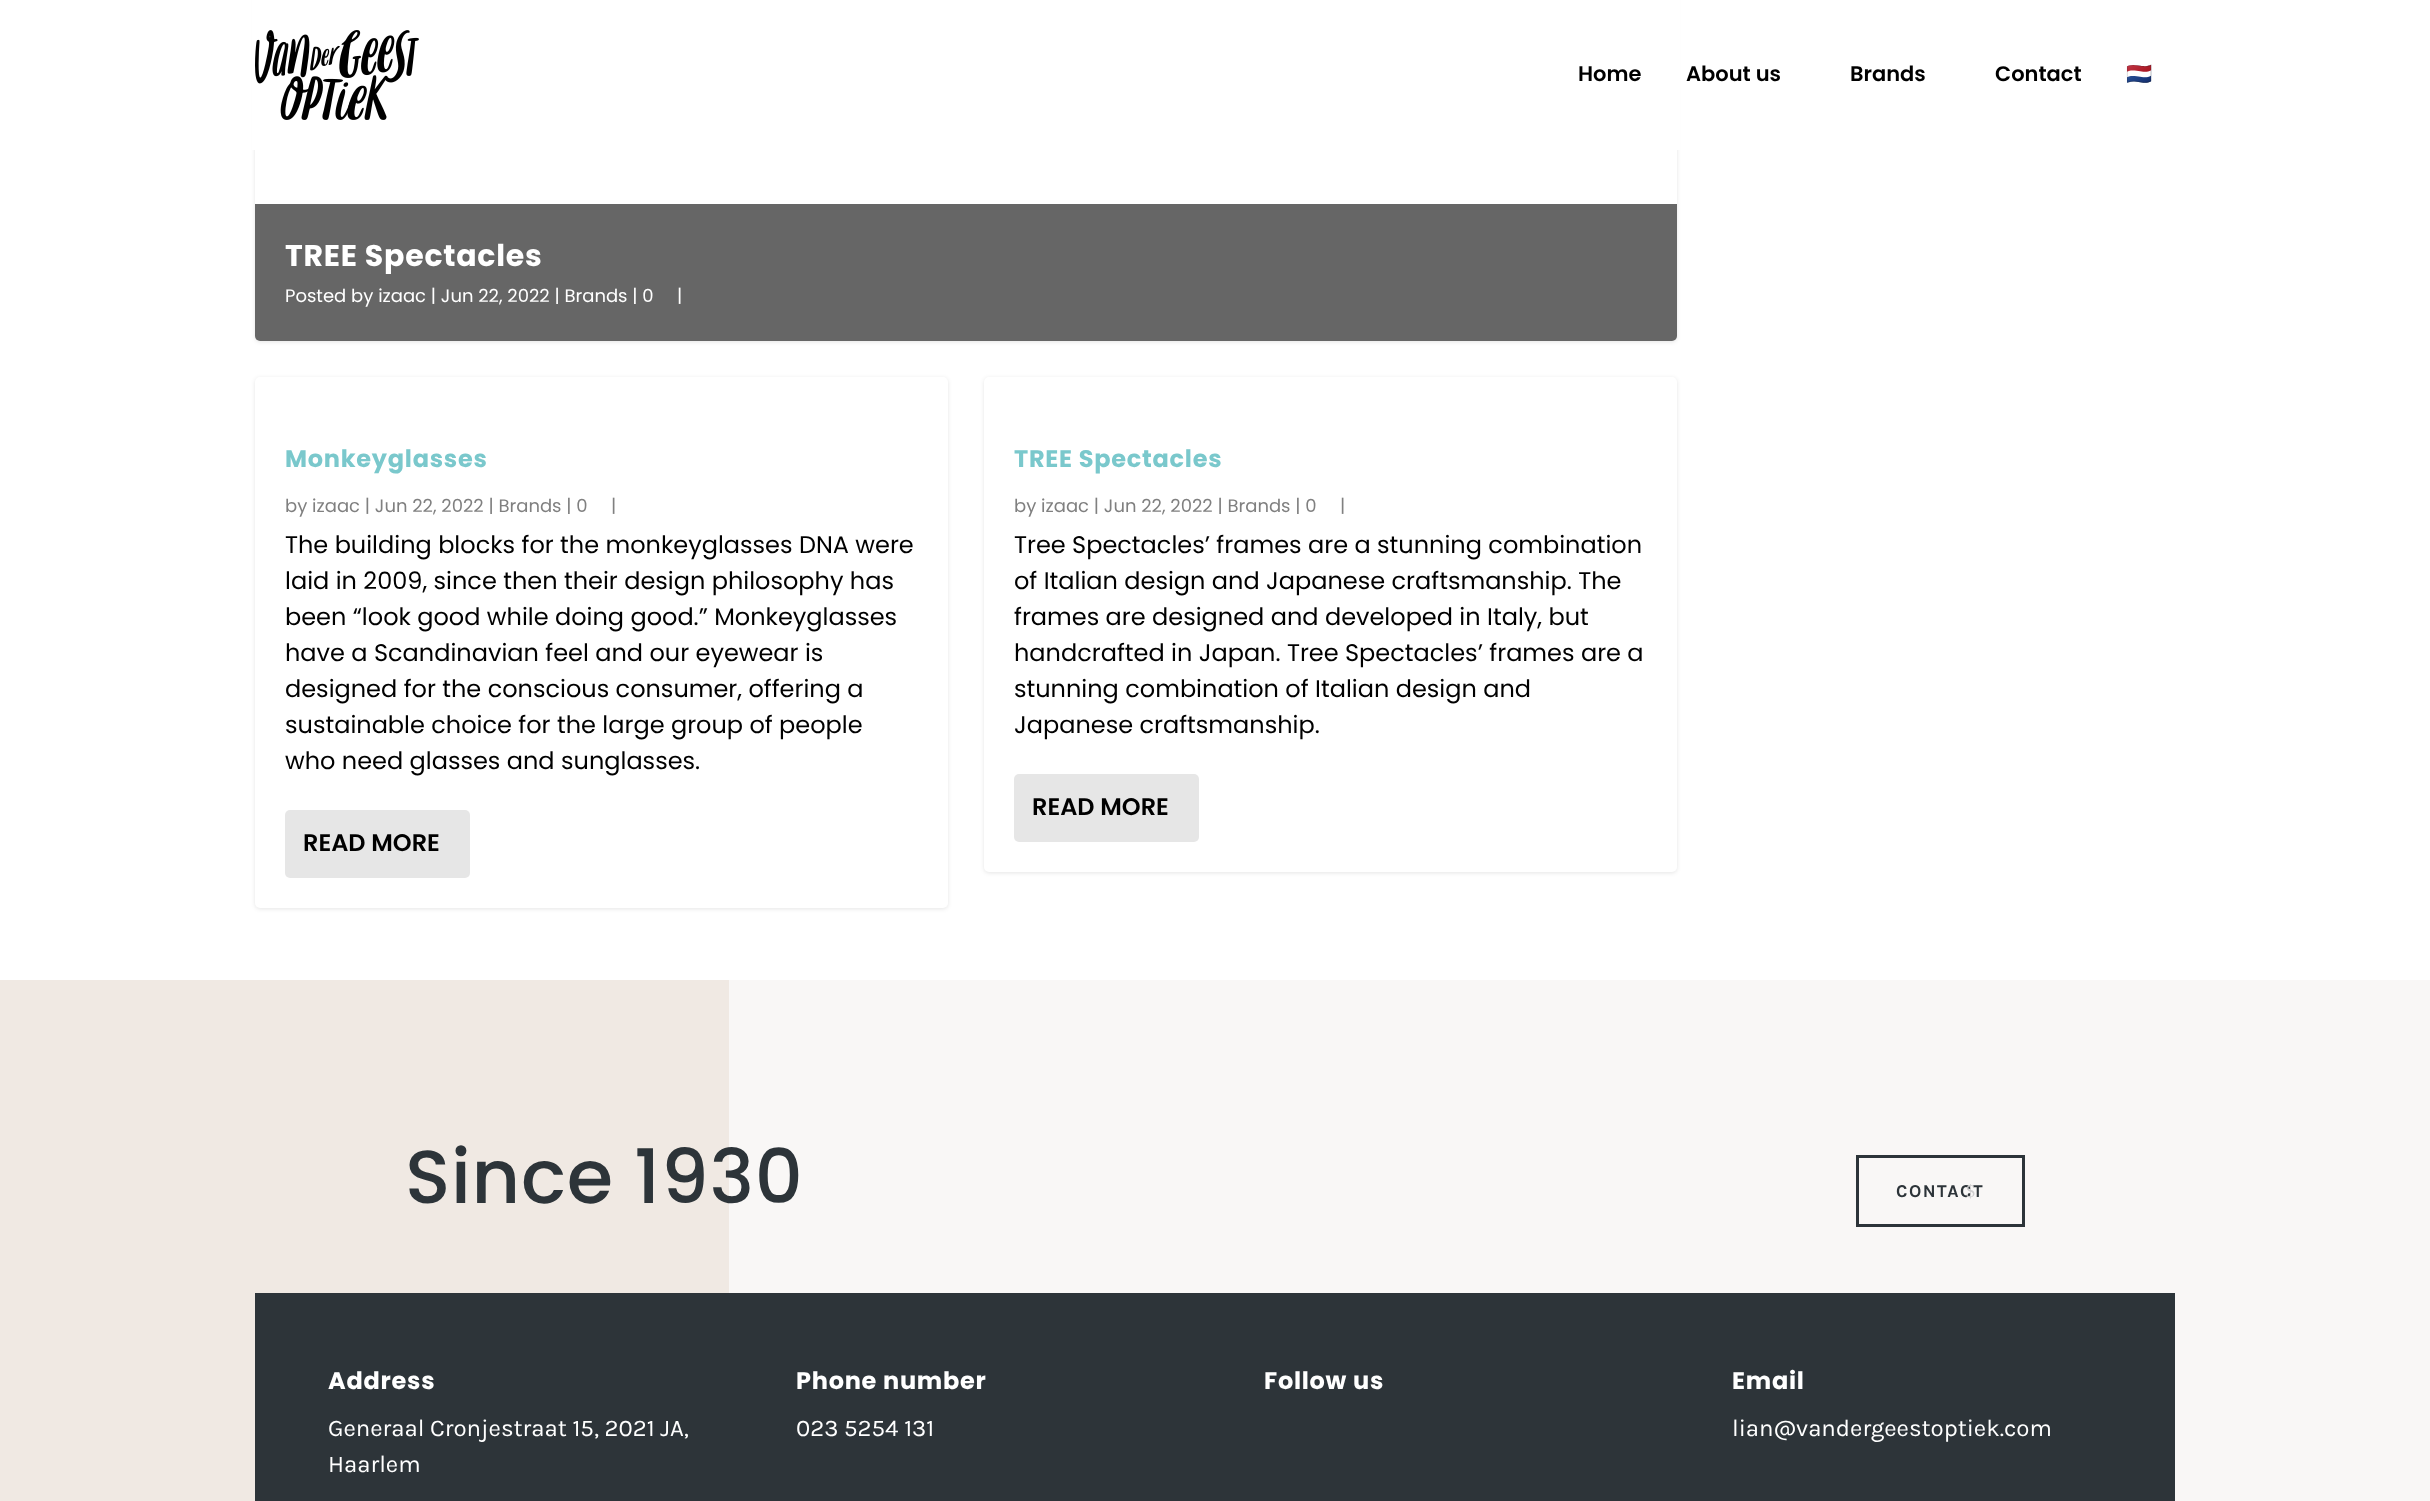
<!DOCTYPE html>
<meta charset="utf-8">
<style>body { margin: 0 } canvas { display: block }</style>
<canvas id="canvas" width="2430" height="1501"></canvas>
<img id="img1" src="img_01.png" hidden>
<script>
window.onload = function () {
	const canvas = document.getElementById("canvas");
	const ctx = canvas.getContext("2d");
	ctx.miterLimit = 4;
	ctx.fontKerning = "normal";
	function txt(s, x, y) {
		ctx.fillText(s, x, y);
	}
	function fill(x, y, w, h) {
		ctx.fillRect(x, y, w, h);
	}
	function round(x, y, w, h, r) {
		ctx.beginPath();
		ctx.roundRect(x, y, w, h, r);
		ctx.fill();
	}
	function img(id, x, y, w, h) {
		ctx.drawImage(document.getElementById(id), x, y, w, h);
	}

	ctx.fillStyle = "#FFFFFF";
	fill(0, 0, 2430, 1501);
	ctx.fillStyle = "rgba(0, 0, 0, 0.1)";
	ctx.filter = "blur(2px)";
	ctx.beginPath();
	ctx.roundRect(255, -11, 1422, 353, 5);
	ctx.fill();
	ctx.filter = "none";
	ctx.fillStyle = "#FFFFFF";
	round(255, -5, 1422, 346, 5);
	fill(252, 0, 1428, 150);
	img("img1", 255, 30, 164, 90);
	ctx.fillStyle = "#666666";
	ctx.beginPath();
	ctx.roundRect(255, 204, 1422, 137, [0, 0, 5, 5]);
	ctx.fill();
	ctx.fillStyle = "rgba(0, 0, 0, 0.1)";
	ctx.filter = "blur(2px)";
	ctx.beginPath();
	ctx.roundRect(255, 378, 693, 531, 5);
	ctx.fill();
	ctx.filter = "none";
	ctx.fillStyle = "#FFFFFF";
	round(255, 377, 693, 531, 5);
	ctx.fillStyle = "#E6E6E6";
	round(285, 810, 185, 68, 5);
	ctx.fillStyle = "rgba(0, 0, 0, 0.1)";
	ctx.filter = "blur(2px)";
	ctx.beginPath();
	ctx.roundRect(984, 378, 693, 495, 5);
	ctx.fill();
	ctx.filter = "none";
	ctx.fillStyle = "#FFFFFF";
	round(984, 377, 693, 495, 5);
	ctx.fillStyle = "#E6E6E6";
	round(1014, 774, 185, 68, 5);
	ctx.fillStyle = "#F0E9E3";
	fill(0, 980, 729, 521);
	ctx.fillStyle = "#F9F7F6";
	fill(729, 980, 1701, 521);
	ctx.strokeStyle = "#2D3439";
	ctx.lineWidth = 3;
	ctx.strokeRect(1857.5, 1156.5, 166, 69);
	ctx.fillStyle = "#2D3439";
	fill(255, 1293, 1920, 208);
	ctx.font = "600 21px Poppins";
	ctx.fillStyle = "#000000";
	txt("Home", 1578, 81);
	txt("About us", 1686, 81);
	txt("Brands", 1850, 81);
	txt("Contact", 1995, 81);
	ctx.font = "bold 21px Noto Color Emoji";
	txt("🇳🇱", 2126, 81);
	ctx.letterSpacing = "0.75px";
	ctx.font = "bold 30px Poppins";
	ctx.fillStyle = "#FFFFFF";
	txt("TREE Spectacles", 285, 266);
	ctx.letterSpacing = "0px";
	ctx.font = "18px Poppins";
	txt("Posted by izaac | Jun 22, 2022 | Brands | 0", 285, 302);
	txt("|", 677, 302);
	ctx.letterSpacing = "0.75px";
	ctx.font = "bold 24px Poppins";
	ctx.fillStyle = "#7AC8CC";
	txt("Monkeyglasses", 285, 467);
	ctx.letterSpacing = "0px";
	ctx.font = "18px Poppins";
	ctx.fillStyle = "#808080";
	txt("by izaac | Jun 22, 2022 | Brands | 0", 285, 512);
	txt("|", 611, 512);
	ctx.font = "24px Poppins";
	ctx.fillStyle = "#000000";
	txt("The building blocks for the monkeyglasses DNA were", 285, 553);
	txt("laid in 2009, since then their design philosophy has", 285, 589);
	txt("been “look good while doing good.” Monkeyglasses", 285, 625);
	txt("have a Scandinavian feel and our eyewear is", 285, 661);
	txt("designed for the conscious consumer, offering a", 285, 697);
	txt("sustainable choice for the large group of people", 285, 733);
	txt("who need glasses and sunglasses.", 285, 769);
	ctx.font = "600 24px Poppins";
	txt("READ MORE", 303, 851);
	ctx.letterSpacing = "0.75px";
	ctx.font = "bold 24px Poppins";
	ctx.fillStyle = "#7AC8CC";
	txt("TREE Spectacles", 1014, 467);
	ctx.letterSpacing = "0px";
	ctx.font = "18px Poppins";
	ctx.fillStyle = "#808080";
	txt("by izaac | Jun 22, 2022 | Brands | 0", 1014, 512);
	txt("|", 1340, 512);
	ctx.font = "24px Poppins";
	ctx.fillStyle = "#000000";
	txt("Tree Spectacles’ frames are a stunning combination", 1014, 553);
	txt("of Italian design and Japanese craftsmanship. The", 1014, 589);
	txt("frames are designed and developed in Italy, but", 1014, 625);
	txt("handcrafted in Japan. Tree Spectacles’ frames are a", 1014, 661);
	txt("stunning combination of Italian design and", 1014, 697);
	txt("Japanese craftsmanship.", 1014, 733);
	ctx.font = "600 24px Poppins";
	txt("READ MORE", 1032, 815);
	ctx.letterSpacing = "0.75px";
	ctx.font = "500 75px Poppins";
	ctx.fillStyle = "#2D3439";
	txt("Since 1930", 405, 1203);
	ctx.letterSpacing = "1.5px";
	ctx.font = "bold 18px Karla";
	txt("CONTACT", 1896, 1197);
	ctx.font = "18px Liberation Serif";
	ctx.fillStyle = "#CFCECF";
	txt("$", 1966, 1197);
	ctx.letterSpacing = "0.75px";
	ctx.font = "bold 24px Poppins";
	ctx.fillStyle = "#FFFFFF";
	txt("Address", 328, 1389);
	ctx.letterSpacing = "0px";
	ctx.font = "24px Karla";
	txt("Generaal Cronjestraat 15, 2021 JA,", 328, 1436);
	txt("Haarlem", 328, 1472);
	ctx.letterSpacing = "0.75px";
	ctx.font = "bold 24px Poppins";
	txt("Phone number", 796, 1389);
	ctx.letterSpacing = "0px";
	ctx.font = "24px Karla";
	txt("023 5254 131", 796, 1436);
	ctx.letterSpacing = "0.75px";
	ctx.font = "bold 24px Poppins";
	txt("Follow us", 1264, 1389);
	txt("Email", 1732, 1389);
	ctx.letterSpacing = "0px";
	ctx.font = "24px Karla";
	txt("lian@vandergeestoptiek.com", 1732, 1436);
};
</script>
